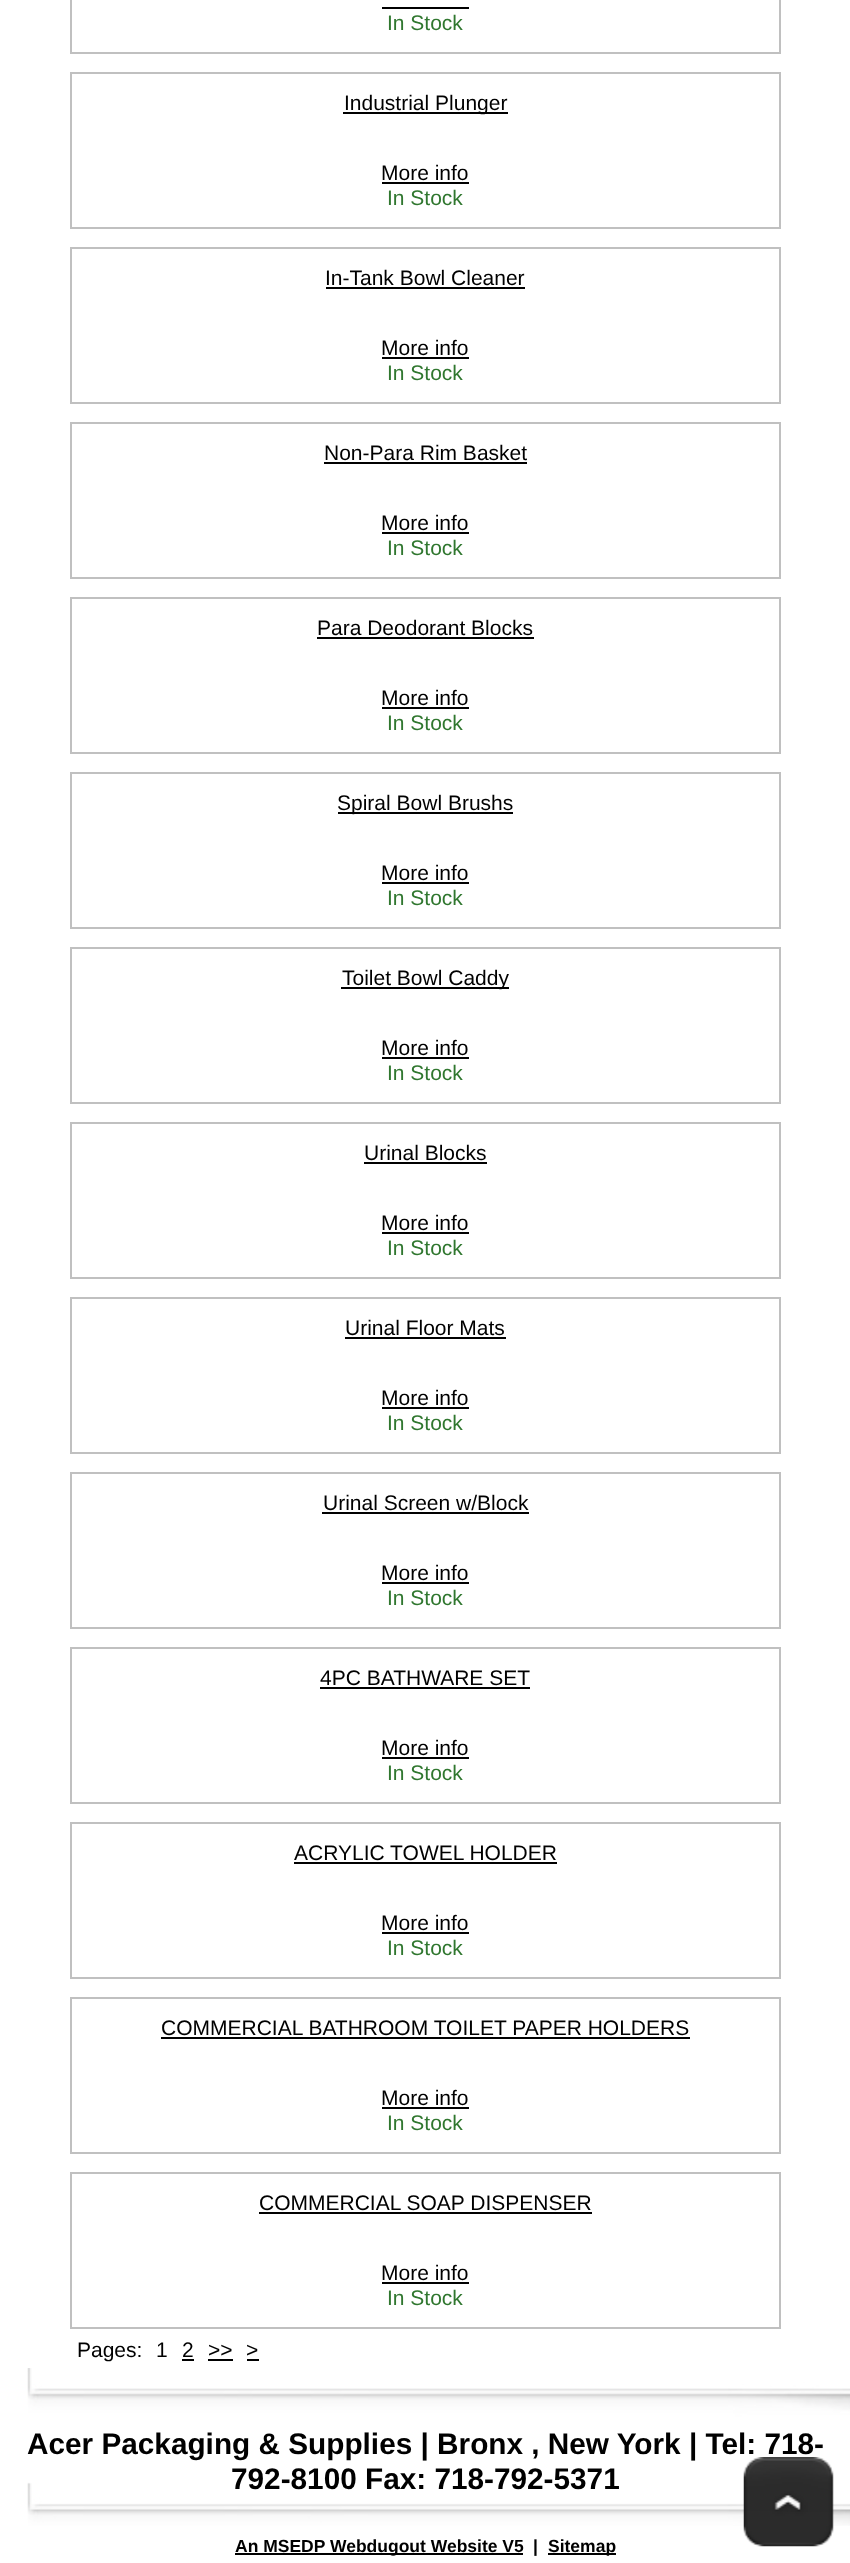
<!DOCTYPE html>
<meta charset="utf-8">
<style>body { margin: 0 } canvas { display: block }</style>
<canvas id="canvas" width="850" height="2563"></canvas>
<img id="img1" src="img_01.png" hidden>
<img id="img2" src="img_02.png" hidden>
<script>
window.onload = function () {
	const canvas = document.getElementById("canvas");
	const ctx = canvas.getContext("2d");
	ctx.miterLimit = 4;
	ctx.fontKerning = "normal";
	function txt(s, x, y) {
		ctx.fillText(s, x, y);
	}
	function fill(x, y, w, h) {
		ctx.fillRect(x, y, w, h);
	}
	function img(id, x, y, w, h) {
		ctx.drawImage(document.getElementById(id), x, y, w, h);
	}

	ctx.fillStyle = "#FFFFFF";
	fill(0, 0, 850, 2563);
	ctx.strokeStyle = "#C0C0C0";
	ctx.lineWidth = 2;
	ctx.strokeRect(71, -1, 709, 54);
	ctx.fillStyle = "#000000";
	fill(382, 7, 87, 2);
	ctx.strokeRect(71, 73, 709, 155);
	fill(343, 112, 165, 2);
	fill(382, 182, 87, 2);
	ctx.strokeRect(71, 248, 709, 155);
	fill(326, 287, 199, 2);
	fill(382, 357, 87, 2);
	ctx.strokeRect(71, 423, 709, 155);
	fill(324, 462, 203, 2);
	fill(382, 532, 87, 2);
	ctx.strokeRect(71, 598, 709, 155);
	fill(317, 637, 217, 2);
	fill(382, 707, 87, 2);
	ctx.strokeRect(71, 773, 709, 155);
	fill(338, 812, 175, 2);
	fill(382, 882, 87, 2);
	ctx.strokeRect(71, 948, 709, 155);
	fill(341, 987, 168, 2);
	fill(382, 1057, 87, 2);
	ctx.strokeRect(71, 1123, 709, 155);
	fill(364, 1162, 123, 2);
	fill(382, 1232, 87, 2);
	ctx.strokeRect(71, 1298, 709, 155);
	fill(345, 1337, 161, 2);
	fill(382, 1407, 87, 2);
	ctx.strokeRect(71, 1473, 709, 155);
	fill(322, 1512, 207, 2);
	fill(382, 1582, 87, 2);
	ctx.strokeRect(71, 1648, 709, 155);
	fill(320, 1687, 210, 2);
	fill(382, 1757, 87, 2);
	ctx.strokeRect(71, 1823, 709, 155);
	fill(294, 1862, 263, 2);
	fill(382, 1932, 87, 2);
	ctx.strokeRect(71, 1998, 709, 155);
	fill(161, 2037, 529, 2);
	fill(382, 2107, 87, 2);
	ctx.strokeRect(71, 2173, 709, 155);
	fill(259, 2212, 333, 2);
	fill(382, 2282, 87, 2);
	fill(182, 2359, 12, 2);
	fill(208, 2359, 25, 2);
	fill(247, 2359, 12, 2);
	img("img1", 27, 2368, 823, 158);
	fill(235, 2553, 288, 2);
	fill(548, 2553, 68, 2);
	ctx.font = "21px Liberation Sans";
	ctx.fillStyle = "#30772F";
	txt("In Stock", 387, 30);
	ctx.fillStyle = "#000000";
	txt("Industrial Plunger", 344, 110);
	txt("More info", 381, 180);
	ctx.fillStyle = "#30772F";
	txt("In Stock", 387, 205);
	ctx.fillStyle = "#000000";
	txt("In-Tank Bowl Cleaner", 325, 285);
	txt("More info", 381, 355);
	ctx.fillStyle = "#30772F";
	txt("In Stock", 387, 380);
	ctx.fillStyle = "#000000";
	txt("Non-Para Rim Basket", 324, 460);
	txt("More info", 381, 530);
	ctx.fillStyle = "#30772F";
	txt("In Stock", 387, 555);
	ctx.fillStyle = "#000000";
	txt("Para Deodorant Blocks", 317, 635);
	txt("More info", 381, 705);
	ctx.fillStyle = "#30772F";
	txt("In Stock", 387, 730);
	ctx.fillStyle = "#000000";
	txt("Spiral Bowl Brushs", 337, 810);
	txt("More info", 381, 880);
	ctx.fillStyle = "#30772F";
	txt("In Stock", 387, 905);
	ctx.fillStyle = "#000000";
	txt("Toilet Bowl Caddy", 342, 985);
	txt("More info", 381, 1055);
	ctx.fillStyle = "#30772F";
	txt("In Stock", 387, 1080);
	ctx.fillStyle = "#000000";
	txt("Urinal Blocks", 364, 1160);
	txt("More info", 381, 1230);
	ctx.fillStyle = "#30772F";
	txt("In Stock", 387, 1255);
	ctx.fillStyle = "#000000";
	txt("Urinal Floor Mats", 345, 1335);
	txt("More info", 381, 1405);
	ctx.fillStyle = "#30772F";
	txt("In Stock", 387, 1430);
	ctx.fillStyle = "#000000";
	txt("Urinal Screen w/Block", 323, 1510);
	txt("More info", 381, 1580);
	ctx.fillStyle = "#30772F";
	txt("In Stock", 387, 1605);
	ctx.fillStyle = "#000000";
	txt("4PC BATHWARE SET", 320, 1685);
	txt("More info", 381, 1755);
	ctx.fillStyle = "#30772F";
	txt("In Stock", 387, 1780);
	ctx.fillStyle = "#000000";
	txt("ACRYLIC TOWEL HOLDER", 294, 1860);
	txt("More info", 381, 1930);
	ctx.fillStyle = "#30772F";
	txt("In Stock", 387, 1955);
	ctx.fillStyle = "#000000";
	txt("COMMERCIAL BATHROOM TOILET PAPER HOLDERS", 161, 2035);
	txt("More info", 381, 2105);
	ctx.fillStyle = "#30772F";
	txt("In Stock", 387, 2130);
	ctx.fillStyle = "#000000";
	txt("COMMERCIAL SOAP DISPENSER", 259, 2210);
	txt("More info", 381, 2280);
	ctx.fillStyle = "#30772F";
	txt("In Stock", 387, 2305);
	ctx.fillStyle = "#000000";
	txt("Pages:", 77, 2357);
	txt("1", 156, 2357);
	txt("2", 182, 2357);
	txt(">>", 208, 2357);
	txt(">", 246, 2357);
	ctx.font = "bold 29.75px Liberation Sans";
	txt("Acer Packaging & Supplies | Bronx , New York | Tel: 718-", 27, 2454);
	txt("792-8100 Fax: 718-792-5371", 231, 2489);
	ctx.font = "bold 17.5px Liberation Sans";
	txt("An MSEDP Webdugout Website V5", 235, 2552);
	txt("|", 533, 2552);
	txt("Sitemap", 548, 2552);
	img("img2", 743, 2457, 91, 90);
};
</script>
